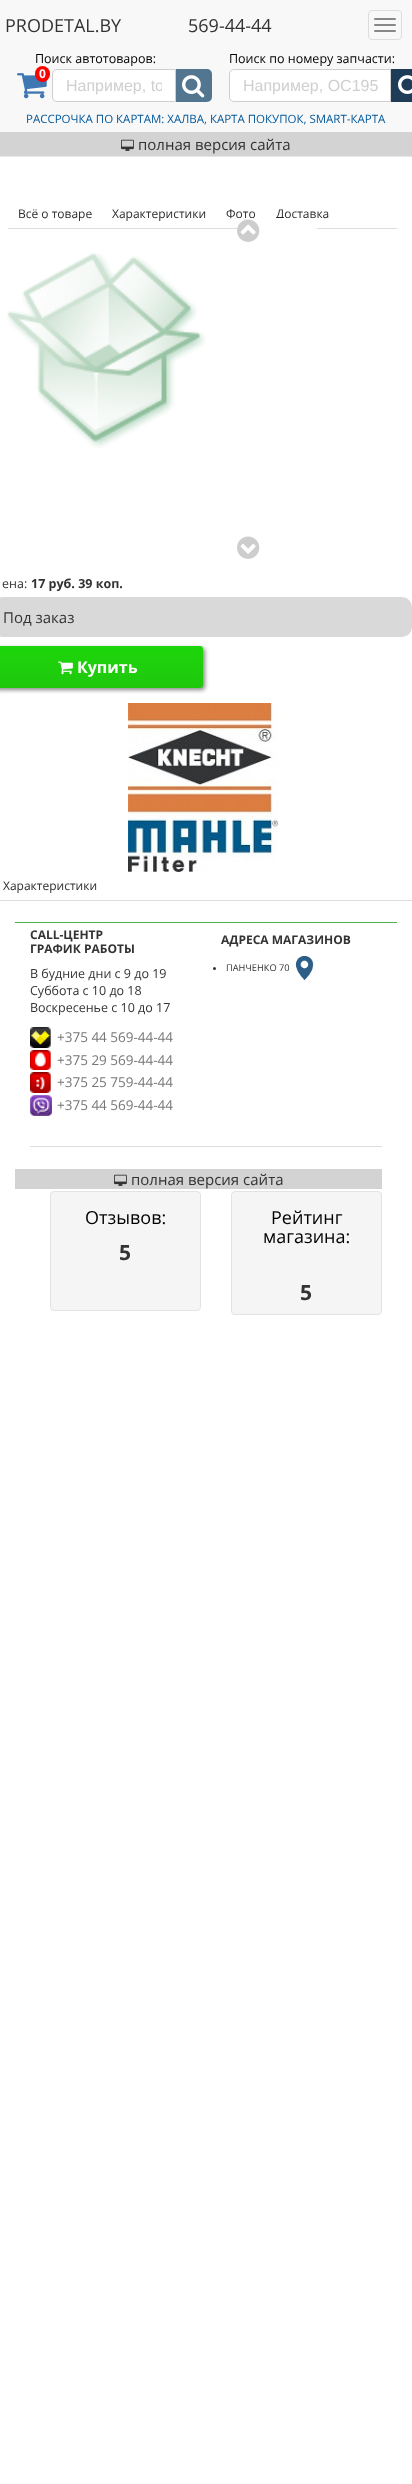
<!DOCTYPE html>
<meta charset="utf-8">
<style>body { margin: 0 } canvas { display: block }</style>
<canvas id="canvas" width="412" height="2484"></canvas>
<img id="img1" src="img_01.png" hidden>
<img id="img2" src="img_02.png" hidden>
<img id="img3" src="img_03.png" hidden>
<img id="img4" src="img_04.png" hidden>
<img id="img5" src="img_05.png" hidden>
<img id="img6" src="img_07.png" hidden>
<img id="img7" src="img_08.png" hidden>
<img id="img8" src="img_09.png" hidden>
<img id="img9" src="img_10.png" hidden>
<img id="img10" src="img_11.png" hidden>
<img id="img11" src="img_12.png" hidden>
<img id="img12" src="img_13.png" hidden>
<img id="img13" src="img_14.png" hidden>
<img id="img14" src="img_06.png" hidden>
<script>
window.onload = function () {
	const canvas = document.getElementById("canvas");
	const ctx = canvas.getContext("2d");
	ctx.miterLimit = 4;
	ctx.fontKerning = "normal";
	function txt(s, x, y) {
		ctx.fillText(s, x, y);
	}
	function fill(x, y, w, h) {
		ctx.fillRect(x, y, w, h);
	}
	function round(x, y, w, h, r) {
		ctx.beginPath();
		ctx.roundRect(x, y, w, h, r);
		ctx.fill();
	}
	function img(id, x, y, w, h) {
		ctx.drawImage(document.getElementById(id), x, y, w, h);
	}
	let gradient;

	ctx.fillStyle = "#FFFFFF";
	fill(0, 0, 412, 2484);
	ctx.fillStyle = "#F8F8F8";
	fill(0, 0, 412, 132);
	ctx.fillStyle = "#E7E7E7";
	fill(0, 156, 412, 1);
	ctx.beginPath();
	ctx.roundRect(368.5, 10.5, 33, 29, 3.5);
	ctx.strokeStyle = "#DDDDDD";
	ctx.stroke();
	ctx.fillStyle = "#888888";
	round(374, 18, 22, 2, 1);
	round(374, 24, 22, 2, 1);
	round(374, 30, 22, 2, 1);
	img("img1", 17, 73, 30, 26);
	ctx.fillStyle = "#FF0000";
	round(35, 66, 15, 16, 7.5);
	ctx.fillStyle = "#FFFFFF";
	ctx.beginPath();
	ctx.roundRect(52.5, 69.5, 123, 32, [4.5, 0, 0, 4.5]);
	ctx.fill();
	ctx.strokeStyle = "#D0CFCF";
	ctx.stroke();
	ctx.fillStyle = "#527690";
	ctx.beginPath();
	ctx.roundRect(176, 69, 36, 33, [0, 5, 5, 0]);
	ctx.fill();
	img("img2", 182, 75, 23, 23);
	ctx.fillStyle = "#FFFFFF";
	ctx.beginPath();
	ctx.roundRect(229.5, 69.5, 161, 32, [4.5, 0, 0, 4.5]);
	ctx.fill();
	ctx.stroke();
	ctx.fillStyle = "#1E3B58";
	fill(391, 69, 21, 33);
	img("img3", 398, 75, 14, 19);
	ctx.fillStyle = "#D3D3D3";
	fill(0, 132, 412, 24);
	img("img4", 121, 139, 13, 12);
	ctx.fillStyle = "#DDDDDD";
	fill(8, 228, 389, 1);
	img("img5", 7, 253, 199, 195);
	img("img6", 237, 536, 23, 23);
	ctx.fillStyle = "#D9D9D9";
	round(-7, 597, 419, 40, 10);
	ctx.fillStyle = "#888888";
	ctx.filter = "blur(2px)";
	ctx.beginPath();
	ctx.roundRect(-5, 648, 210, 42, 3);
	ctx.fill();
	ctx.filter = "none";
	gradient = ctx.createLinearGradient(98, 646, 98, 688);
	gradient.addColorStop(0, "#1DD60B");
	gradient.addColorStop(1, "#1FC80D");
	ctx.fillStyle = gradient;
	round(-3, 646, 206, 42, 3);
	img("img7", 58, 661, 15, 14);
	img("img8", 128, 703, 150, 169);
	ctx.fillStyle = "#DDDDDD";
	fill(0, 900, 412, 1);
	ctx.fillStyle = "#4CAE4C";
	fill(15, 922, 382, 1);
	img("img9", 30, 1027, 21, 21);
	img("img10", 30, 1050, 21, 20);
	img("img11", 30, 1072, 21, 21);
	img("img12", 30, 1095, 22, 21);
	ctx.fillStyle = "#333333";
	ctx.beginPath();
	ctx.arc(214.5, 968.5, 1.5, 0, Math.PI * 2);
	ctx.fill();
	img("img13", 295, 956, 19, 24);
	ctx.fillStyle = "#DDDDDD";
	fill(30, 1146, 352, 1);
	ctx.fillStyle = "#D3D3D3";
	fill(15, 1169, 367, 20);
	img("img4", 114, 1174, 13, 12);
	ctx.fillStyle = "#F5F5F5";
	ctx.beginPath();
	ctx.roundRect(50.5, 1191.5, 150, 119, 3.5);
	ctx.fill();
	ctx.strokeStyle = "#E3E3E3";
	ctx.stroke();
	ctx.beginPath();
	ctx.roundRect(231.5, 1191.5, 150, 123, 3.5);
	ctx.fill();
	ctx.stroke();
	ctx.font = "18px Open Sans";
	ctx.fillStyle = "#333333";
	txt("PRODETAL.BY", 5, 32);
	txt("569-44-44", 188, 32);
	ctx.font = "12.5px Open Sans";
	ctx.fillStyle = "#000000";
	txt("Поиск автотоваров:", 35, 63);
	ctx.font = "bold 12px Open Sans";
	ctx.fillStyle = "#FFFFFF";
	txt("0", 39, 78);
	ctx.save();
	ctx.beginPath();
	ctx.rect(66, 77, 96, 18);
	ctx.clip();
	ctx.font = "16px Liberation Sans";
	ctx.fillStyle = "#D0CFCF";
	txt("Например, to", 66, 91);
	ctx.restore();
	ctx.font = "12.5px Open Sans";
	ctx.fillStyle = "#000000";
	txt("Поиск по номеру запчасти:", 229, 63);
	ctx.font = "16px Liberation Sans";
	ctx.fillStyle = "#D0CFCF";
	txt("Например, OC195", 243, 91);
	ctx.font = "11.5px Open Sans";
	ctx.fillStyle = "#01579B";
	txt("РАССРОЧКА ПО КАРТАМ: ХАЛВА, КАРТА ПОКУПОК, SMART-КАРТА", 26, 123);
	ctx.font = "15px Open Sans";
	ctx.fillStyle = "#333333";
	txt("полная версия сайта", 138, 150);
	ctx.font = "12px Open Sans";
	ctx.fillStyle = "#2C2C2C";
	txt("Всё о товаре", 18, 218);
	txt("Характеристики", 112, 218);
	txt("Фото", 226, 218);
	txt("Доставка", 276, 218);
	ctx.fillStyle = "#FFFFFF";
	fill(237, 218, 80, 11);
	img("img14", 237, 219, 23, 23);
	ctx.font = "12.5px Open Sans";
	ctx.fillStyle = "#333333";
	txt("ена:", 2, 588);
	ctx.font = "bold 12.5px Open Sans";
	txt("17 руб. 39 коп.", 31, 588);
	ctx.font = "15px Open Sans";
	txt("Под заказ", 3, 623);
	ctx.font = "bold 16px Open Sans";
	ctx.fillStyle = "#FFFFFF";
	txt("Купить", 77, 673);
	ctx.font = "12px Open Sans";
	ctx.fillStyle = "#2C2C2C";
	txt("Характеристики", 3, 890);
	ctx.font = "bold 12px Open Sans";
	ctx.fillStyle = "#333333";
	txt("CALL-ЦЕНТР", 30, 939);
	txt("ГРАФИК РАБОТЫ", 30, 953);
	ctx.font = "12.5px Open Sans";
	txt("В будние дни с 9 до 19", 30, 978);
	txt("Суббота с 10 до 18", 30, 995);
	txt("Воскресенье с 10 до 17", 30, 1012);
	ctx.font = "13.5px Open Sans";
	ctx.fillStyle = "#777777";
	txt("+375 44 569-44-44", 57, 1042);
	txt("+375 29 569-44-44", 57, 1065);
	txt("+375 25 759-44-44", 57, 1087);
	txt("+375 44 569-44-44", 57, 1110);
	ctx.font = "bold 12px Open Sans";
	ctx.fillStyle = "#333333";
	txt("АДРЕСА МАГАЗИНОВ", 221, 944);
	ctx.font = "9.25px Open Sans";
	txt("ПАНЧЕНКО 70", 226, 971);
	ctx.font = "15px Open Sans";
	txt("полная версия сайта", 131, 1185);
	ctx.font = "18px Open Sans";
	ctx.fillStyle = "#000000";
	txt("Отзывов:", 85, 1224);
	ctx.font = "bold 21px Open Sans";
	ctx.fillStyle = "#333333";
	txt("5", 119, 1260);
	ctx.font = "18px Open Sans";
	ctx.fillStyle = "#000000";
	txt("Рейтинг", 271, 1224);
	txt("магазина:", 263, 1243);
	ctx.font = "bold 21px Open Sans";
	ctx.fillStyle = "#333333";
	txt("5", 300, 1300);
};
</script>
